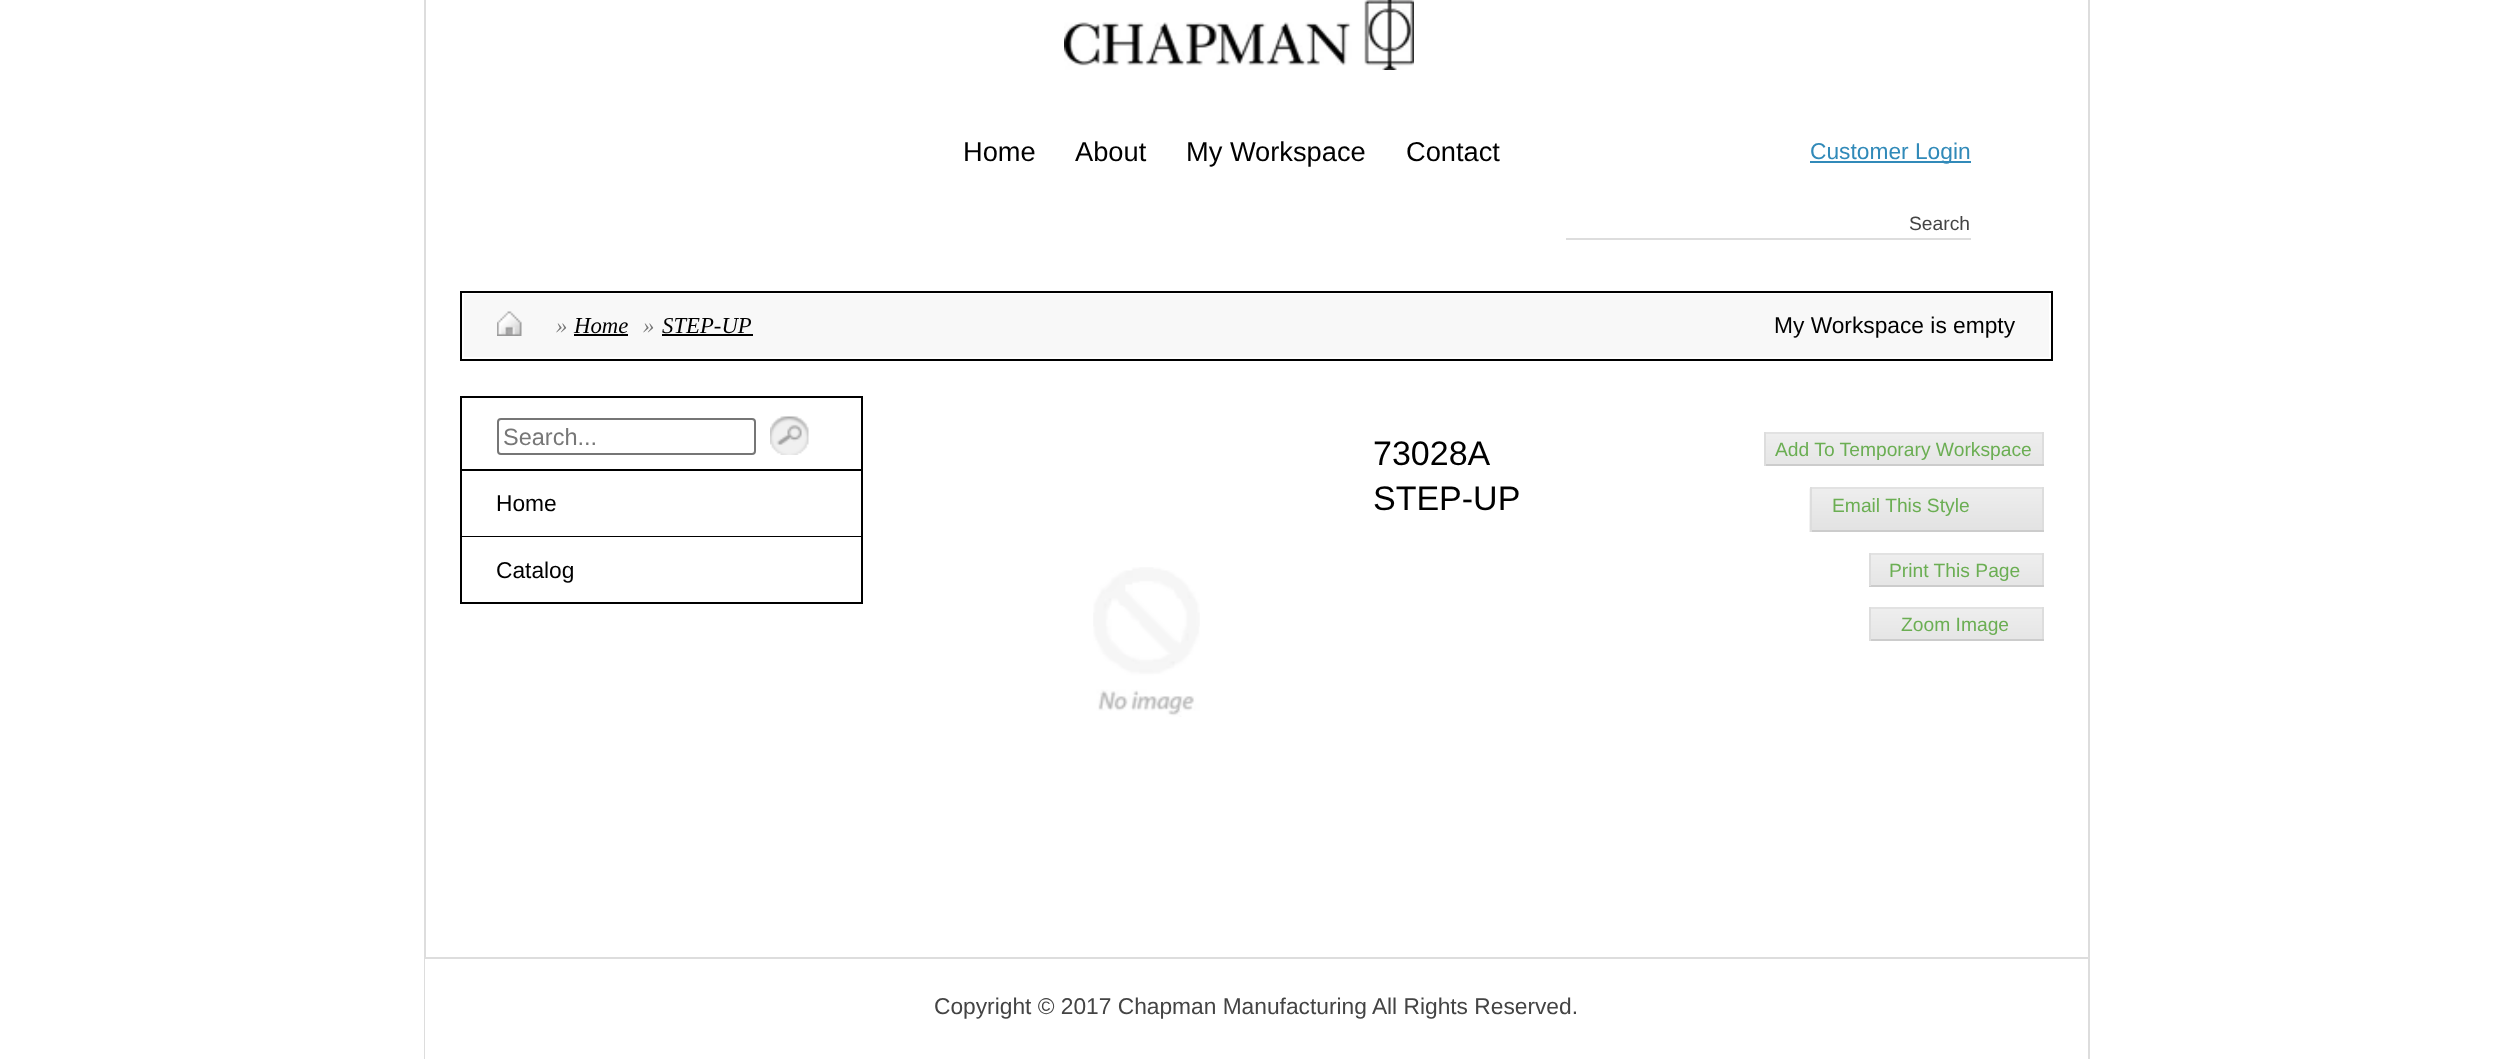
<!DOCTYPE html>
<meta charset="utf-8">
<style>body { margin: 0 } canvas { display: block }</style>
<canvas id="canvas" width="2511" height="1059"></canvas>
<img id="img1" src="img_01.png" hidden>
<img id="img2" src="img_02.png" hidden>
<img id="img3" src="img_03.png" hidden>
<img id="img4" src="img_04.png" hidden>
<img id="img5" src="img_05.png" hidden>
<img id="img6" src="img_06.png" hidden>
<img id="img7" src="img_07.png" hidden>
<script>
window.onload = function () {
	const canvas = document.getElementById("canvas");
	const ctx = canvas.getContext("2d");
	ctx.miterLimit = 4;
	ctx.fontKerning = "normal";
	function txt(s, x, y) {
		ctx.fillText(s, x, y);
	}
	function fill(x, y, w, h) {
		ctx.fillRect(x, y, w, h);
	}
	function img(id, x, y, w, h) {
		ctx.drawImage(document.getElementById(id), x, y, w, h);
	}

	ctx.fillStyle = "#FFFFFF";
	fill(0, 0, 2511, 1059);
	ctx.fillStyle = "#DDDDDD";
	fill(2088, 0, 2, 1059);
	fill(424, 0, 2, 1059);
	img("img1", 1064, 0, 350, 70);
	ctx.fillStyle = "#318AB9";
	fill(1810, 161, 161, 2);
	ctx.fillStyle = "#DDDDDD";
	fill(1566, 238, 405, 2);
	ctx.strokeStyle = "#000000";
	ctx.lineWidth = 2;
	ctx.strokeRect(461, 292, 1591, 68);
	ctx.fillStyle = "#F8F8F8";
	fill(464, 294, 1585, 63);
	img("img2", 497, 311, 25, 25);
	ctx.fillStyle = "#000000";
	fill(574, 334, 54, 2);
	fill(662, 334, 91, 2);
	ctx.strokeRect(461, 397, 401, 73);
	ctx.beginPath();
	ctx.roundRect(498, 419, 257, 35, 3);
	ctx.strokeStyle = "#767676";
	ctx.stroke();
	img("img3", 770, 416, 39, 39);
	fill(861, 471, 2, 133);
	fill(460, 471, 2, 133);
	fill(462, 536, 399, 1);
	fill(462, 602, 399, 2);
	img("img4", 1093, 567, 107, 150);
	img("img5", 1766, 434, 276, 30);
	ctx.fillStyle = "#E2E2E2";
	fill(1764, 432, 280, 2);
	ctx.fillStyle = "#DDDDDD";
	fill(2042, 432, 2, 34);
	ctx.fillStyle = "#CCCCCC";
	fill(1764, 464, 280, 2);
	ctx.fillStyle = "#DDDDDD";
	fill(1764, 432, 2, 34);
	img("img6", 1809, 488, 233, 44);
	ctx.fillStyle = "#E2E2E2";
	fill(1810, 487, 234, 2);
	ctx.fillStyle = "#DDDDDD";
	fill(2042, 487, 2, 45);
	ctx.fillStyle = "#CCCCCC";
	fill(1810, 530, 234, 2);
	ctx.fillStyle = "#DDDDDD";
	fill(1810, 487, 2, 45);
	img("img7", 1871, 555, 171, 30);
	ctx.fillStyle = "#E2E2E2";
	fill(1869, 553, 175, 2);
	ctx.fillStyle = "#DDDDDD";
	fill(2042, 553, 2, 33);
	ctx.fillStyle = "#CCCCCC";
	fill(1869, 585, 175, 2);
	ctx.fillStyle = "#DDDDDD";
	fill(1869, 553, 2, 33);
	img("img7", 1871, 609, 171, 30);
	ctx.fillStyle = "#E2E2E2";
	fill(1869, 607, 175, 2);
	ctx.fillStyle = "#DDDDDD";
	fill(2042, 607, 2, 34);
	ctx.fillStyle = "#CCCCCC";
	fill(1869, 639, 175, 2);
	ctx.fillStyle = "#DDDDDD";
	fill(1869, 607, 2, 34);
	ctx.fillStyle = "#FFFFFF";
	fill(425, 959, 1, 100);
	ctx.fillStyle = "#DDDDDD";
	fill(425, 957, 1663, 2);
	ctx.font = "27.25px Liberation Sans";
	ctx.fillStyle = "#000000";
	txt("Home", 963, 161);
	txt("About", 1075, 161);
	txt("My Workspace", 1186, 161);
	txt("Contact", 1406, 161);
	ctx.font = "22.75px Liberation Sans";
	ctx.fillStyle = "#318AB9";
	txt("Customer Login", 1810, 159);
	ctx.font = "19.25px Liberation Sans";
	ctx.fillStyle = "#444444";
	txt("Search", 1909, 230);
	ctx.font = "italic 22.75px Liberation Serif";
	ctx.fillStyle = "#777777";
	txt("»", 556, 333);
	ctx.fillStyle = "#000000";
	txt("Home", 574, 333);
	ctx.fillStyle = "#777777";
	txt("»", 643, 333);
	ctx.fillStyle = "#000000";
	txt("STEP-UP", 662, 333);
	ctx.font = "22.75px Liberation Sans";
	txt("My Workspace is empty", 1774, 333);
	ctx.font = "23.5px Liberation Sans";
	ctx.fillStyle = "#777777";
	txt("Search...", 503, 445);
	ctx.font = "22.75px Liberation Sans";
	ctx.fillStyle = "#000000";
	txt("Home", 496, 511);
	txt("Catalog", 496, 578);
	ctx.font = "34px Liberation Sans";
	txt("73028A", 1373, 465);
	txt("STEP-UP", 1373, 510);
	ctx.font = "19.25px Liberation Sans";
	ctx.fillStyle = "#6BAE53";
	txt("Add To Temporary Workspace", 1775, 456);
	txt("Email This Style", 1832, 512);
	txt("Print This Page", 1889, 577);
	txt("Zoom Image", 1901, 631);
	ctx.font = "22.75px Liberation Sans";
	ctx.fillStyle = "#444444";
	txt("Copyright © 2017 Chapman Manufacturing All Rights Reserved.", 934, 1014);
};
</script>
